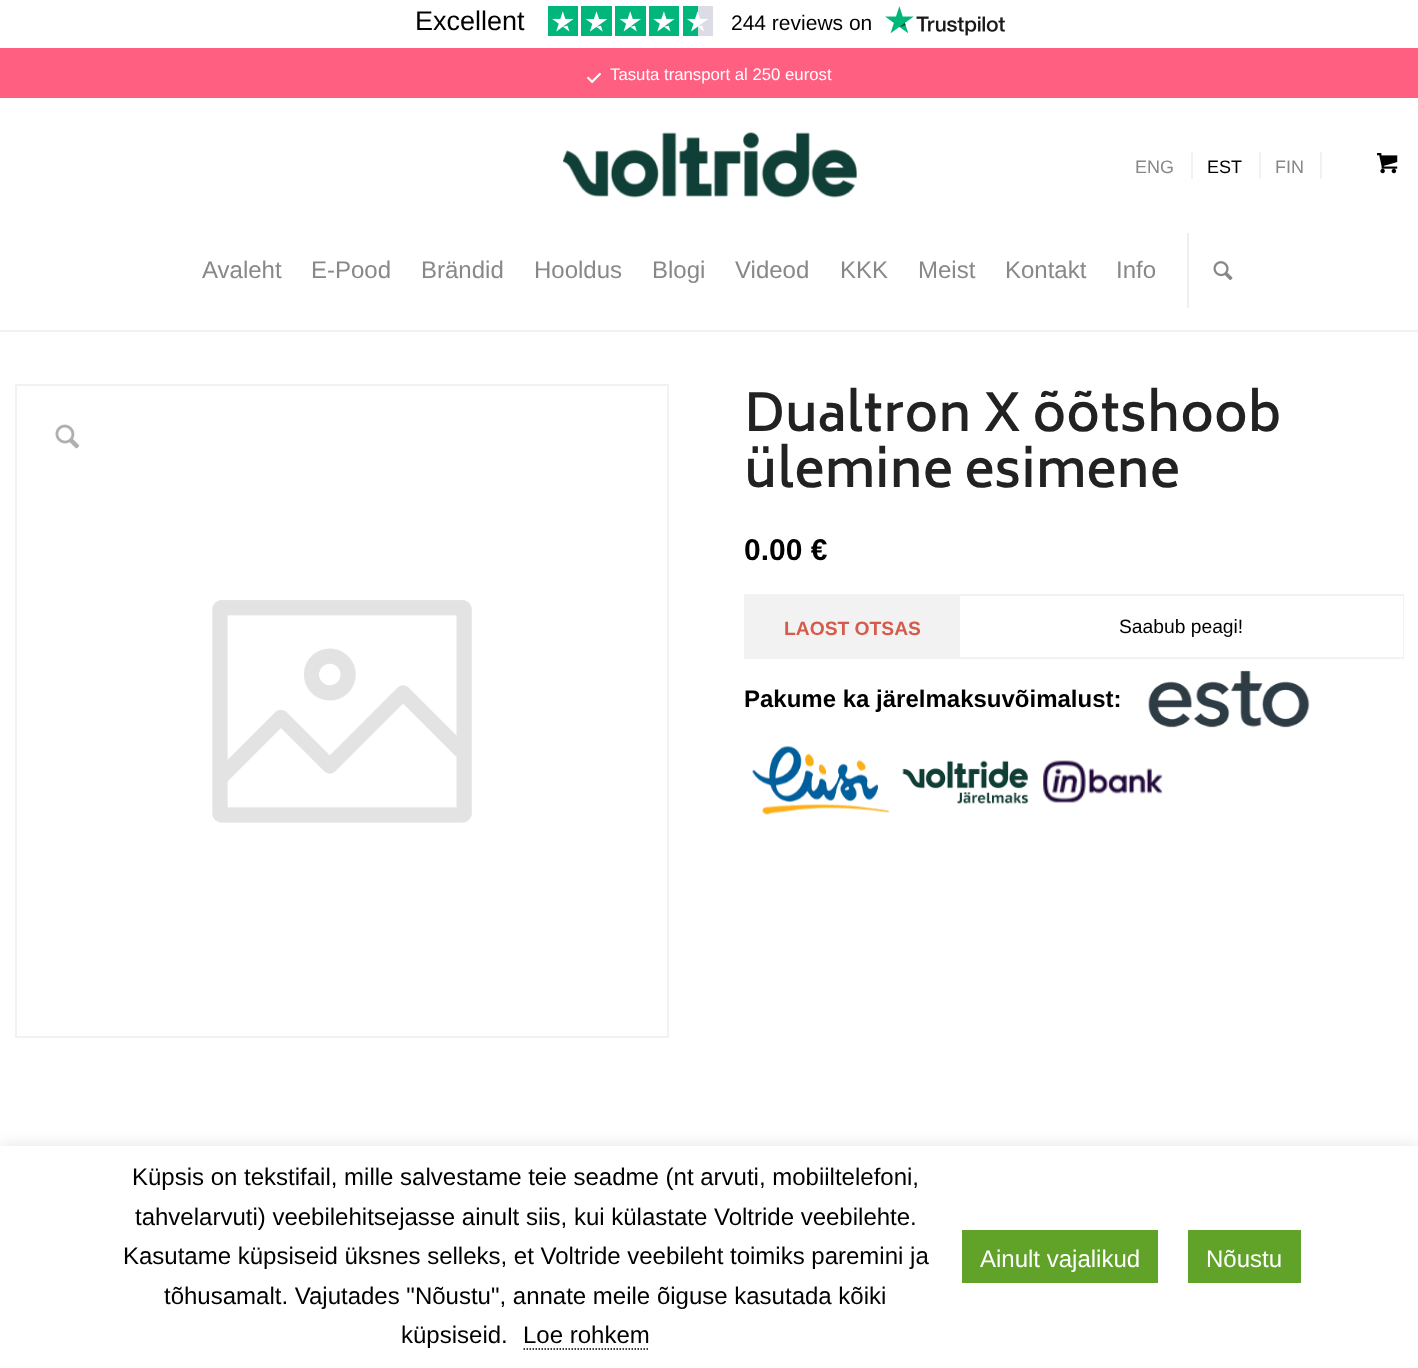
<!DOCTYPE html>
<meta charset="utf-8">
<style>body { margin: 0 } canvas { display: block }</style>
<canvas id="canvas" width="1418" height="1368"></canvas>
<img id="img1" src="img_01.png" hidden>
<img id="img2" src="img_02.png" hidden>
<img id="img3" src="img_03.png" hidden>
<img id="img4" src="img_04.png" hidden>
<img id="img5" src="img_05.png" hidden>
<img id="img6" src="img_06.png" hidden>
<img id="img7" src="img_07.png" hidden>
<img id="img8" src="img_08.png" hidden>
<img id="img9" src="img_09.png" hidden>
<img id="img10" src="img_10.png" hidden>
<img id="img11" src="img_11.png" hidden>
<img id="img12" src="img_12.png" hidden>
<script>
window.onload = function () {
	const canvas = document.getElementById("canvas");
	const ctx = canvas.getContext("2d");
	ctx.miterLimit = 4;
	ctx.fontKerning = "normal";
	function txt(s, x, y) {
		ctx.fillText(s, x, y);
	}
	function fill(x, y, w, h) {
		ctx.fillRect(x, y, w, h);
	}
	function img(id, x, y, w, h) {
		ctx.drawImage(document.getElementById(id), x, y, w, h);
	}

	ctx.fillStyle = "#FFFFFF";
	fill(0, 0, 1418, 1368);
	img("img1", 548, 6, 165, 30);
	img("img2", 885, 6, 120, 30);
	ctx.fillStyle = "#FF6082";
	fill(0, 48, 1418, 50);
	img("img3", 587, 72, 14, 12);
	ctx.fillStyle = "#F1F3F3";
	fill(0, 330, 1418, 2);
	img("img4", 562, 131, 295, 67);
	fill(1191, 152, 2, 27);
	fill(1259, 152, 2, 27);
	fill(1320, 152, 2, 27);
	img("img5", 1377, 153, 21, 21);
	ctx.fillStyle = "#EFEFEF";
	fill(1187, 233, 2, 75);
	img("img6", 1213, 261, 20, 20);
	ctx.strokeStyle = "#F2F2F2";
	ctx.lineWidth = 2;
	ctx.strokeRect(16, 385, 652, 652);
	img("img7", 212, 600, 260, 223);
	img("img8", 55, 424, 25, 25);
	ctx.fillStyle = "#F2F2F2";
	fill(744, 594, 660, 65);
	ctx.fillStyle = "#FFFFFF";
	fill(960, 596, 443, 61);
	img("img9", 1148, 670, 162, 58);
	img("img10", 752, 746, 138, 69);
	img("img11", 902, 760, 127, 44);
	img("img12", 1043, 760, 119, 43);
	ctx.fillStyle = "rgba(172, 171, 171, 0.3)";
	ctx.filter = "blur(7.5px)";
	ctx.beginPath();
	ctx.rect(0, 1145, 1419, 222);
	ctx.fill();
	ctx.filter = "none";
	ctx.fillStyle = "#FFFFFF";
	fill(0, 1146, 1418, 222);
	ctx.beginPath();
	ctx.moveTo(523.5, 1349);
	ctx.lineTo(649.5, 1349);
	ctx.strokeStyle = "#000000";
	ctx.lineWidth = 1.5;
	ctx.setLineDash([1.5, 1.5]);
	ctx.stroke();
	ctx.fillStyle = "#61A229";
	fill(962, 1230, 196, 53);
	fill(1188, 1230, 113, 53);
	ctx.font = "27px Liberation Sans";
	ctx.fillStyle = "#000000";
	txt("Excellent", 415, 30);
	ctx.font = "21px Liberation Sans";
	txt("244 reviews on", 731, 30);
	ctx.font = "16.75px Liberation Sans";
	ctx.fillStyle = "#FFFFFF";
	txt("Tasuta transport al 250 eurost", 610, 80);
	ctx.font = "18px Liberation Sans";
	ctx.fillStyle = "#888888";
	txt("ENG", 1135, 173);
	ctx.fillStyle = "#000000";
	txt("EST", 1207, 173);
	ctx.fillStyle = "#888888";
	txt("FIN", 1275, 173);
	ctx.font = "24px Liberation Sans";
	txt("Avaleht", 202, 278);
	txt("E-Pood", 311, 278);
	txt("Brändid", 421, 278);
	txt("Hooldus", 534, 278);
	txt("Blogi", 652, 278);
	txt("Videod", 735, 278);
	txt("KKK", 840, 278);
	txt("Meist", 918, 278);
	txt("Kontakt", 1005, 278);
	txt("Info", 1116, 278);
	ctx.font = "600 51px Biryani";
	ctx.fillStyle = "#222222";
	txt("Dualtron X õõtshoob", 744, 431);
	txt("ülemine esimene", 744, 487);
	ctx.font = "bold 30px Liberation Sans";
	ctx.fillStyle = "#000000";
	txt("0.00 €", 744, 560);
	ctx.font = "bold 19.25px Liberation Sans";
	ctx.fillStyle = "#D55B4C";
	txt("LAOST OTSAS", 784, 635);
	ctx.font = "19.25px Liberation Sans";
	ctx.fillStyle = "#000000";
	txt("Saabub peagi!", 1119, 633);
	ctx.font = "bold 24px Liberation Sans";
	txt("Pakume ka järelmaksuvõimalust:", 744, 707);
	ctx.font = "24px Liberation Sans";
	txt("Küpsis on tekstifail, mille salvestame teie seadme (nt arvuti, mobiiltelefoni,", 132, 1185);
	txt("tahvelarvuti) veebilehitsejasse ainult siis, kui külastate Voltride veebilehte.", 135, 1225);
	txt("Kasutame küpsiseid üksnes selleks, et Voltride veebileht toimiks paremini ja", 123, 1264);
	txt("tõhusamalt. Vajutades \"Nõustu\", annate meile õiguse kasutada kõiki", 164, 1304);
	txt("küpsiseid.", 401, 1343);
	txt("Loe rohkem", 523, 1343);
	ctx.fillStyle = "#FFFFFF";
	txt("Ainult vajalikud", 980, 1267);
	txt("Nõustu", 1206, 1267);
};
</script>
